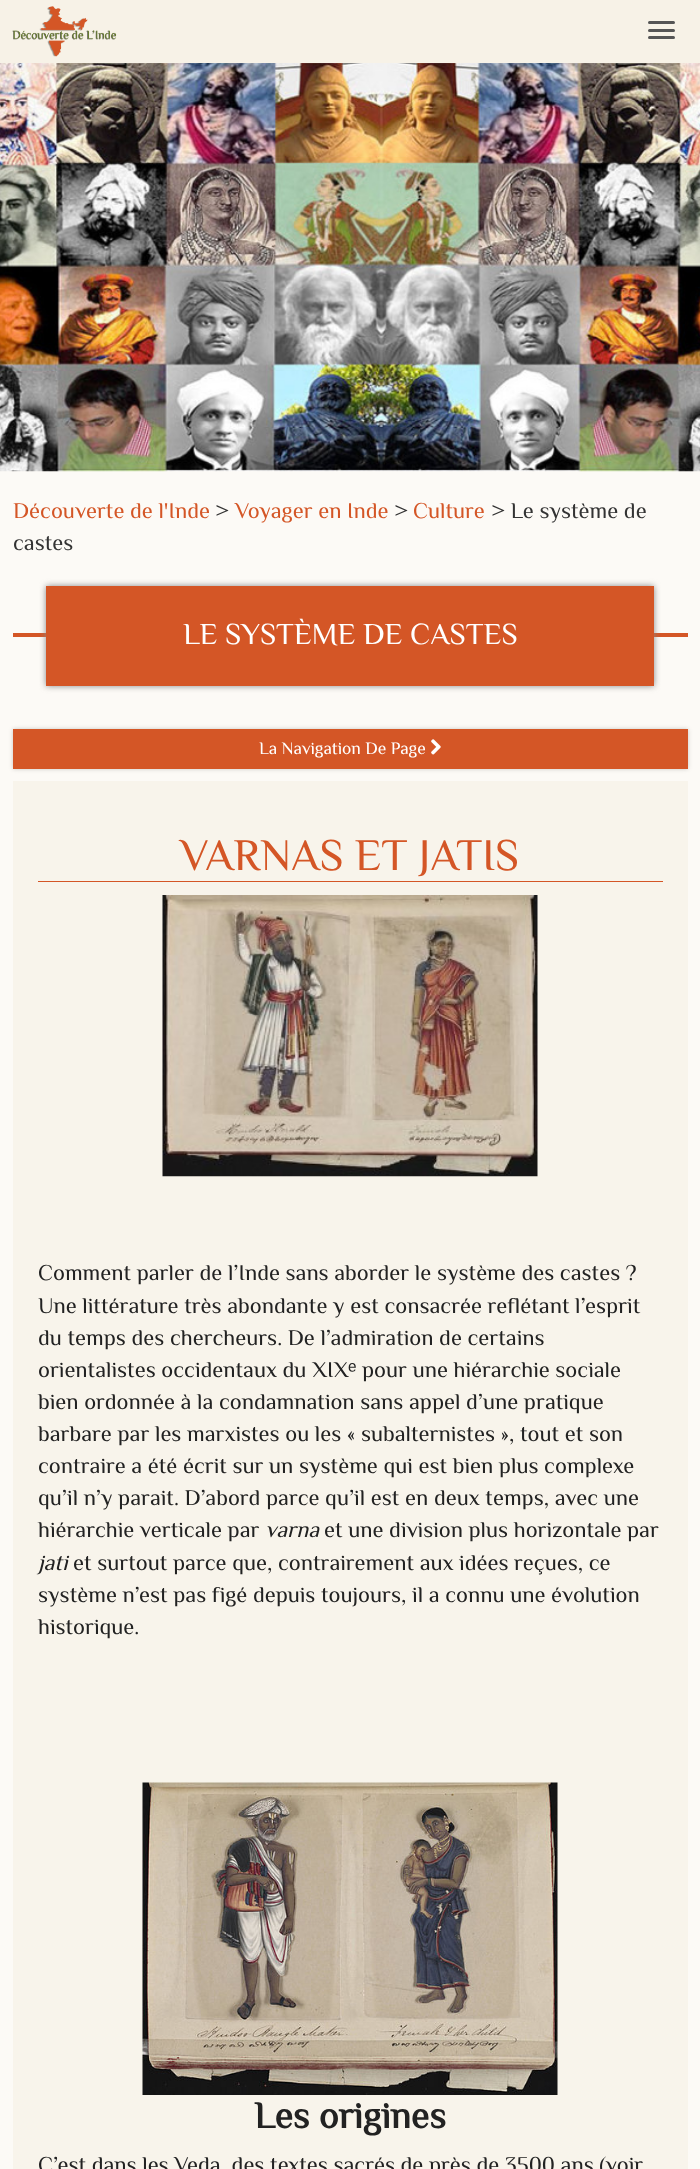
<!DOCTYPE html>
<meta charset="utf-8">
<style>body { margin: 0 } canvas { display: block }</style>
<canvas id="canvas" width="700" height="2169"></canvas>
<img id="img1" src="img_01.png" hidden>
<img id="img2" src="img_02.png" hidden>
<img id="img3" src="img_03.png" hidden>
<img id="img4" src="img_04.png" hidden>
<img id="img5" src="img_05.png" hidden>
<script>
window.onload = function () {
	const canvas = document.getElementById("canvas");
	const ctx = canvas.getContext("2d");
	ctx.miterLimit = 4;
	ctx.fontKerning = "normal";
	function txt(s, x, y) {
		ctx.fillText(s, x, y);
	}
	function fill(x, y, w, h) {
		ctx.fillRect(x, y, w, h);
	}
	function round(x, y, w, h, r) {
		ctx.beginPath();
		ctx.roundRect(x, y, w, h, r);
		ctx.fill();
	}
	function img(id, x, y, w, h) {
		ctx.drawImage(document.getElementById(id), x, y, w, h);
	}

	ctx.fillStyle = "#FCFAF6";
	fill(0, 0, 700, 2169);
	ctx.fillStyle = "#F7F2E7";
	fill(0, 0, 700, 63);
	img("img1", 12, 6, 105, 51);
	ctx.fillStyle = "#555555";
	round(648, 21, 27, 3, 1.5);
	round(648, 29, 27, 3, 1.5);
	round(648, 36, 27, 3, 1.5);
	img("img2", 0, 63, 700, 409);
	ctx.fillStyle = "#D45626";
	fill(13, 633, 675, 4);
	ctx.fillStyle = "#888888";
	ctx.filter = "blur(3px)";
	ctx.beginPath();
	ctx.rect(46, 586, 608, 100);
	ctx.fill();
	ctx.filter = "none";
	ctx.fillStyle = "#D45626";
	fill(46, 586, 608, 100);
	ctx.fillStyle = "rgba(0, 0, 0, 0.2)";
	ctx.filter = "blur(2px)";
	ctx.beginPath();
	ctx.rect(13, 729, 675, 40);
	ctx.fill();
	ctx.filter = "none";
	ctx.fillStyle = "#D45626";
	fill(13, 729, 675, 40);
	img("img3", 431, 739, 10, 16);
	ctx.fillStyle = "#F8F4EB";
	fill(13, 781, 675, 1388);
	ctx.fillStyle = "#D45626";
	fill(38, 881, 625, 1);
	img("img4", 162, 895, 376, 282);
	img("img5", 142, 1782, 416, 313);
	ctx.font = "22.5px Philosopher";
	txt("Découverte de l'Inde", 13, 518);
	ctx.fillStyle = "#333333";
	txt(">", 215, 518);
	ctx.fillStyle = "#D45626";
	txt("Voyager en Inde", 235, 518);
	ctx.fillStyle = "#333333";
	txt(">", 394, 518);
	ctx.fillStyle = "#D45626";
	txt("Culture", 413, 518);
	ctx.fillStyle = "#333333";
	txt("> Le système de", 491, 518);
	txt("castes", 13, 550);
	ctx.font = "30.4px Philosopher";
	ctx.fillStyle = "#FFFFFF";
	txt("LE SYSTÈME DE CASTES", 183, 644);
	ctx.font = "17.5px Philosopher";
	txt("La Navigation De Page", 259, 754);
	ctx.font = "45px Philosopher";
	ctx.fillStyle = "#D45626";
	txt("VARNAS ET JATIS", 180, 870);
	ctx.font = "22.5px Philosopher";
	ctx.fillStyle = "#222222";
	txt("Comment parler de l’Inde sans aborder le système des castes ?", 38, 1280);
	txt("Une littérature très abondante y est consacrée reflétant l’esprit", 38, 1313);
	txt("du temps des chercheurs. De l’admiration de certains", 38, 1345);
	txt("orientalistes occidentaux du XIX", 38, 1377);
	ctx.font = "22.5px Liberation Sans";
	txt("ᵉ", 348, 1377);
	ctx.font = "22.5px Philosopher";
	txt("pour une hiérarchie sociale", 362, 1377);
	txt("bien ordonnée à la condamnation sans appel d’une pratique", 38, 1409);
	txt("barbare par les marxistes ou les « subalternistes », tout et son", 38, 1441);
	txt("contraire a été écrit sur un système qui est bien plus complexe", 38, 1473);
	txt("qu’il n’y parait. D’abord parce qu’il est en deux temps, avec une", 38, 1505);
	txt("hiérarchie verticale par", 38, 1537);
	ctx.font = "italic 22.5px Philosopher";
	txt("varna", 265, 1537);
	ctx.font = "22.5px Philosopher";
	txt("et une division plus horizontale par", 324, 1537);
	ctx.font = "italic 22.5px Philosopher";
	txt("jati", 38, 1570);
	ctx.font = "22.5px Philosopher";
	txt("et surtout parce que, contrairement aux idées reçues, ce", 73, 1570);
	txt("système n’est pas figé depuis toujours, il a connu une évolution", 38, 1602);
	txt("historique.", 38, 1634);
	ctx.font = "bold 37.5px Philosopher";
	txt("Les origines", 254, 2128);
	ctx.font = "22.5px Philosopher";
	txt("C’est dans les Veda, des textes sacrés de près de 3500 ans (voir", 38, 2172);
};
</script>
